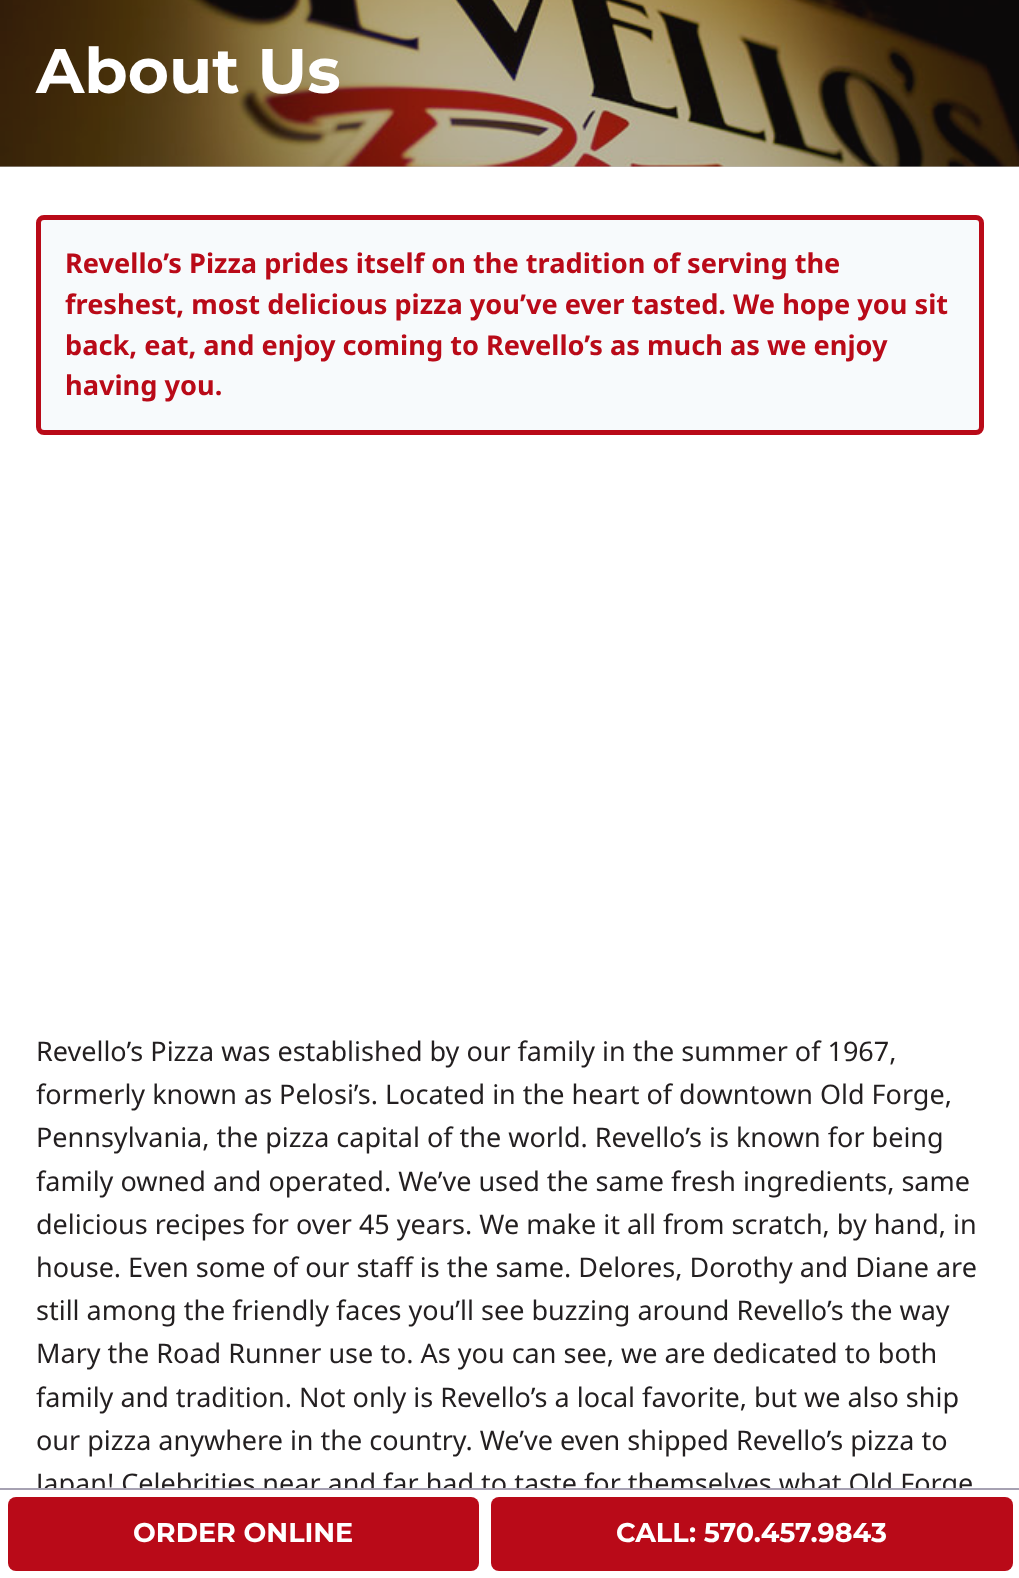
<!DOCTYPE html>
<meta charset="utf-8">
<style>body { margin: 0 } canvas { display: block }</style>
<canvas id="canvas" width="1019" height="1578"></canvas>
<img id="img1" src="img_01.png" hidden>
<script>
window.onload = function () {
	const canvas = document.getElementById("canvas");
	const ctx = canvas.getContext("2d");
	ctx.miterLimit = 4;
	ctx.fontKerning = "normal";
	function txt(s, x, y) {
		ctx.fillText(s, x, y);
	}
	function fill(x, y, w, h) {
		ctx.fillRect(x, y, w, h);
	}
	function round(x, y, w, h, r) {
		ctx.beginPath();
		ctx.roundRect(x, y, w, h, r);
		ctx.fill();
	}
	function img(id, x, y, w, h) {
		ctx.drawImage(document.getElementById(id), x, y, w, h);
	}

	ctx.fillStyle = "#FFFFFF";
	fill(0, 0, 1019, 1578);
	ctx.fillStyle = "#BDBBBB";
	fill(0, 166, 1019, 1);
	img("img1", 0, 0, 1019, 167);
	ctx.fillStyle = "#F7FAFC";
	ctx.beginPath();
	ctx.roundRect(38.5, 217.5, 943, 215, 5.5);
	ctx.fill();
	ctx.strokeStyle = "#B90A18";
	ctx.lineWidth = 5;
	ctx.stroke();
	ctx.font = "bold 63px Montserrat";
	ctx.fillStyle = "#FFFFFF";
	txt("About Us", 36, 93);
	ctx.font = "bold 27.2px Noto Sans";
	ctx.fillStyle = "#B90A18";
	txt("Revello’s Pizza prides itself on the tradition of serving the", 65, 273);
	txt("freshest, most delicious pizza you’ve ever tasted. We hope you sit", 65, 314);
	txt("back, eat, and enjoy coming to Revello’s as much as we enjoy", 65, 355);
	txt("having you.", 65, 395);
	ctx.font = "27px Noto Sans";
	ctx.fillStyle = "#231F20";
	txt("Revello’s Pizza was established by our family in the summer of 1967,", 36, 1061);
	txt("formerly known as Pelosi’s. Located in the heart of downtown Old Forge,", 36, 1104);
	txt("Pennsylvania, the pizza capital of the world. Revello’s is known for being", 36, 1147);
	txt("family owned and operated. We’ve used the same fresh ingredients, same", 36, 1191);
	txt("delicious recipes for over 45 years. We make it all from scratch, by hand, in", 36, 1234);
	txt("house. Even some of our staff is the same. Delores, Dorothy and Diane are", 36, 1277);
	txt("still among the friendly faces you’ll see buzzing around Revello’s the way", 36, 1320);
	txt("Mary the Road Runner use to. As you can see, we are dedicated to both", 36, 1363);
	txt("family and tradition. Not only is Revello’s a local favorite, but we also ship", 36, 1407);
	txt("our pizza anywhere in the country. We’ve even shipped Revello’s pizza to", 36, 1450);
	txt("Japan! Celebrities near and far had to taste for themselves what Old Forge", 36, 1493);
	ctx.fillStyle = "#FFFFFF";
	fill(33, 1490, 939, 10);
	ctx.fillStyle = "#A6A1B2";
	fill(0, 1488, 1019, 2);
	ctx.fillStyle = "#B90A18";
	round(8, 1497, 471, 74, 8);
	ctx.font = "bold 27px Montserrat";
	ctx.fillStyle = "#FFFFFF";
	txt("ORDER ONLINE", 133, 1542);
	ctx.fillStyle = "#B90A18";
	round(491, 1497, 522, 74, 8);
	ctx.fillStyle = "#FFFFFF";
	txt("CALL: 570.457.9843", 616, 1542);
};
</script>
